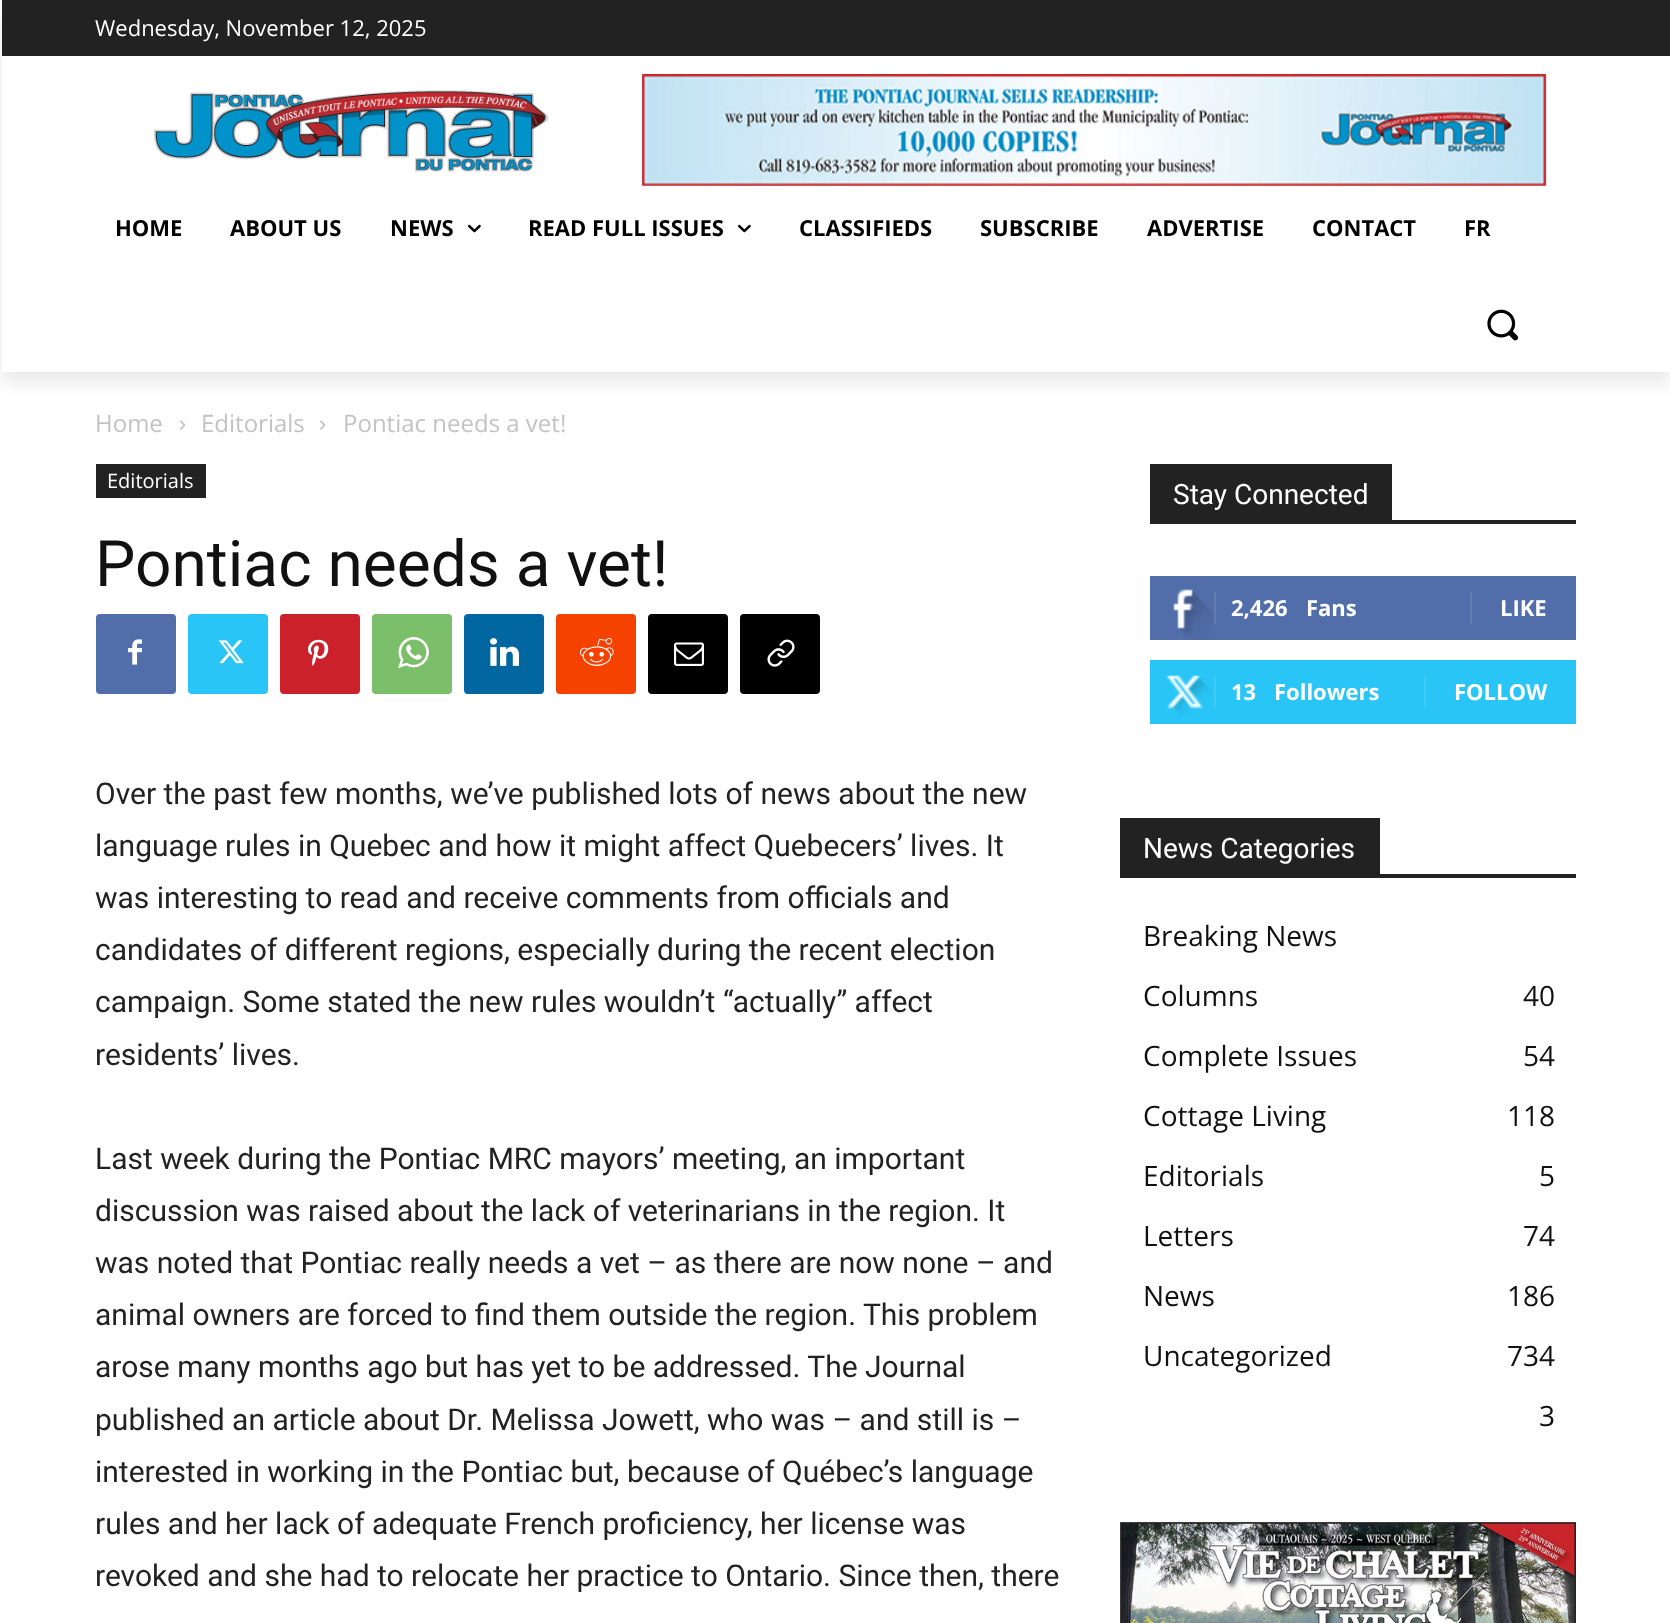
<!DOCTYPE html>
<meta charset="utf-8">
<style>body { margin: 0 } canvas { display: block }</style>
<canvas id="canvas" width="1670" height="1623"></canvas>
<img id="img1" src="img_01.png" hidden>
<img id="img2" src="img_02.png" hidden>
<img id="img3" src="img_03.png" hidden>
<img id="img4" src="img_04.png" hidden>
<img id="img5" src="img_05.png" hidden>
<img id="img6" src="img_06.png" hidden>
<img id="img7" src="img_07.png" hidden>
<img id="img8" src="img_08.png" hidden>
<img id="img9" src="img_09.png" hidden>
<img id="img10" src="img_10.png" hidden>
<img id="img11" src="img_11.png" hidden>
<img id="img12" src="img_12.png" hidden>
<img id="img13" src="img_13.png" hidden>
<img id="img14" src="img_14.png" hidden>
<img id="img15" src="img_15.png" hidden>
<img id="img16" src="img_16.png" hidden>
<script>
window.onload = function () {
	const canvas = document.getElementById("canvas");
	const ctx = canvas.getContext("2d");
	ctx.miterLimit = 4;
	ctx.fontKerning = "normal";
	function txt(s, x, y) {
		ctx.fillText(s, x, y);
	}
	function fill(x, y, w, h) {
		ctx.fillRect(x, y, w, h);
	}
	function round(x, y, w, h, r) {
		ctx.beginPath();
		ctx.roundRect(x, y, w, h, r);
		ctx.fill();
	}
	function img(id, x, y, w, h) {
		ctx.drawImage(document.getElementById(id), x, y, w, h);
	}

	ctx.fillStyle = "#FFFFFF";
	fill(0, 0, 1670, 1623);
	ctx.fillStyle = "#222222";
	fill(2, 0, 1668, 56);
	img("img1", 154, 90, 395, 82);
	img("img2", 642, 74, 905, 112);
	ctx.save();
	ctx.beginPath();
	ctx.moveTo(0, 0);
	ctx.lineTo(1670, 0);
	ctx.lineTo(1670, 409);
	ctx.lineTo(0, 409);
	ctx.closePath();
	ctx.moveTo(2, 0);
	ctx.lineTo(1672, 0);
	ctx.lineTo(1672, 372);
	ctx.lineTo(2, 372);
	ctx.closePath();
	ctx.clip("evenodd");
	ctx.fillStyle = "rgba(0, 0, 0, 0.08)";
	ctx.filter = "blur(8px)";
	ctx.beginPath();
	ctx.rect(2, 12, 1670, 372);
	ctx.fill();
	ctx.filter = "none";
	ctx.restore();
	img("img3", 468, 224, 13, 9);
	img("img3", 738, 224, 13, 9);
	img("img4", 1487, 309, 32, 32);
	img("img5", 180, 420, 6, 10);
	img("img5", 320, 420, 6, 10);
	fill(96, 464, 110, 34);
	ctx.fillStyle = "#516EAB";
	round(96, 614, 80, 80, 4);
	img("img6", 128, 639, 14, 26);
	ctx.fillStyle = "#29C5F6";
	round(188, 614, 80, 80, 4);
	img("img7", 218, 640, 26, 24);
	ctx.fillStyle = "#CA212A";
	round(280, 614, 80, 80, 4);
	img("img8", 308, 639, 21, 27);
	ctx.fillStyle = "#7BBF6A";
	round(372, 614, 80, 80, 4);
	img("img9", 398, 637, 31, 31);
	ctx.fillStyle = "#0266A0";
	round(464, 614, 80, 80, 4);
	img("img10", 490, 638, 29, 28);
	ctx.fillStyle = "#F54200";
	round(556, 614, 80, 80, 4);
	img("img11", 580, 638, 34, 28);
	ctx.fillStyle = "#000000";
	round(648, 614, 80, 80, 4);
	img("img12", 674, 642, 30, 24);
	round(740, 614, 80, 80, 4);
	img("img13", 767, 639, 28, 28);
	ctx.fillStyle = "#222222";
	fill(1150, 520, 426, 4);
	fill(1150, 464, 242, 56);
	ctx.fillStyle = "#516EAB";
	fill(1150, 576, 426, 64);
	img("img14", 1173, 589, 41, 51);
	ctx.fillStyle = "#627DB3";
	fill(1214, 592, 2, 32);
	fill(1470, 592, 2, 32);
	ctx.fillStyle = "#29C5F6";
	fill(1150, 660, 426, 64);
	img("img15", 1165, 675, 46, 42);
	ctx.fillStyle = "#3ECBF7";
	fill(1214, 676, 2, 32);
	fill(1424, 676, 2, 32);
	ctx.fillStyle = "#222222";
	fill(1120, 874, 456, 4);
	fill(1120, 818, 260, 56);
	img("img16", 1120, 1522, 456, 101);
	ctx.font = "22px Open Sans";
	ctx.fillStyle = "#FFFFFF";
	txt("Wednesday, November 12, 2025", 95, 36);
	ctx.font = "bold 22px Open Sans";
	ctx.fillStyle = "#000000";
	txt("HOME", 115, 236);
	txt("ABOUT US", 230, 236);
	txt("NEWS", 390, 236);
	txt("READ FULL ISSUES", 528, 236);
	txt("CLASSIFIEDS", 799, 236);
	txt("SUBSCRIBE", 980, 236);
	txt("ADVERTISE", 1147, 236);
	txt("CONTACT", 1312, 236);
	txt("FR", 1464, 236);
	ctx.font = "24px Open Sans";
	ctx.fillStyle = "#C3C3C3";
	txt("Home", 95, 432);
	txt("Editorials", 201, 432);
	txt("Pontiac needs a vet!", 343, 432);
	ctx.font = "20px Open Sans";
	ctx.fillStyle = "#FFFFFF";
	txt("Editorials", 107, 488);
	ctx.font = "64px Roboto";
	ctx.fillStyle = "#111111";
	txt("Pontiac needs a vet!", 95, 586);
	ctx.font = "30px Roboto";
	ctx.fillStyle = "#222222";
	txt("Over the past few months, we’ve published lots of news about the new", 95, 804);
	txt("language rules in Quebec and how it might affect Quebecers’ lives. It", 95, 856);
	txt("was interesting to read and receive comments from officials and", 95, 908);
	txt("candidates of different regions, especially during the recent election", 95, 960);
	txt("campaign. Some stated the new rules wouldn’t “actually” affect", 95, 1012);
	txt("residents’ lives.", 95, 1065);
	txt("Last week during the Pontiac MRC mayors’ meeting, an important", 95, 1169);
	txt("discussion was raised about the lack of veterinarians in the region. It", 95, 1221);
	txt("was noted that Pontiac really needs a vet – as there are now none – and", 95, 1273);
	txt("animal owners are forced to find them outside the region. This problem", 95, 1325);
	txt("arose many months ago but has yet to be addressed. The Journal", 95, 1377);
	txt("published an article about Dr. Melissa Jowett, who was – and still is –", 95, 1430);
	txt("interested in working in the Pontiac but, because of Québec’s language", 95, 1482);
	txt("rules and her lack of adequate French proficiency, her license was", 95, 1534);
	txt("revoked and she had to relocate her practice to Ontario. Since then, there", 95, 1586);
	ctx.font = "28px Roboto";
	ctx.fillStyle = "#FFFFFF";
	txt("Stay Connected", 1173, 504);
	ctx.font = "bold 22px Open Sans";
	txt("2,426", 1231, 616);
	txt("Fans", 1306, 616);
	txt("LIKE", 1500, 616);
	txt("13", 1231, 700);
	txt("Followers", 1274, 700);
	txt("FOLLOW", 1454, 700);
	ctx.font = "28px Roboto";
	txt("News Categories", 1143, 858);
	ctx.font = "28px Open Sans";
	ctx.fillStyle = "#111111";
	txt("Breaking News", 1143, 946);
	txt("40", 1523, 1006);
	txt("Columns", 1143, 1006);
	txt("54", 1523, 1066);
	txt("Complete Issues", 1143, 1066);
	txt("118", 1507, 1126);
	txt("Cottage Living", 1143, 1126);
	txt("5", 1539, 1186);
	txt("Editorials", 1143, 1186);
	txt("74", 1523, 1246);
	txt("Letters", 1143, 1246);
	txt("186", 1507, 1306);
	txt("News", 1143, 1306);
	txt("734", 1507, 1366);
	txt("Uncategorized", 1143, 1366);
	txt("3", 1539, 1426);
};
</script>
